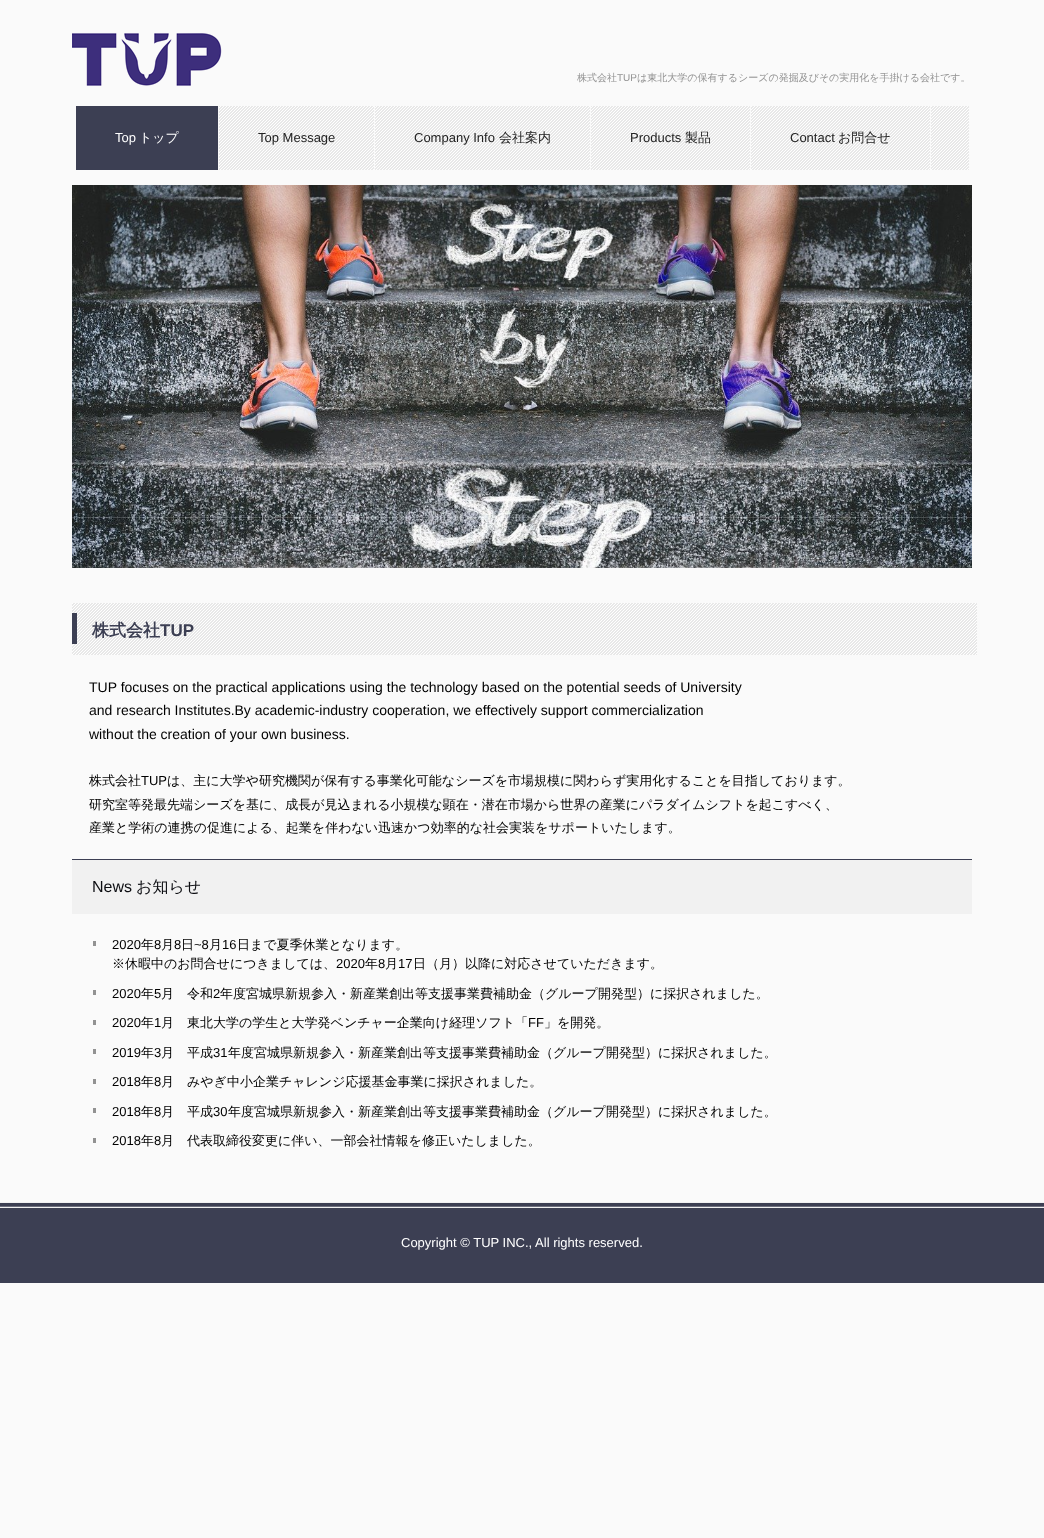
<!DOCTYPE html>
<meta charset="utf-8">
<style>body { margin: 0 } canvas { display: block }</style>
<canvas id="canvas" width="1044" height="1538"></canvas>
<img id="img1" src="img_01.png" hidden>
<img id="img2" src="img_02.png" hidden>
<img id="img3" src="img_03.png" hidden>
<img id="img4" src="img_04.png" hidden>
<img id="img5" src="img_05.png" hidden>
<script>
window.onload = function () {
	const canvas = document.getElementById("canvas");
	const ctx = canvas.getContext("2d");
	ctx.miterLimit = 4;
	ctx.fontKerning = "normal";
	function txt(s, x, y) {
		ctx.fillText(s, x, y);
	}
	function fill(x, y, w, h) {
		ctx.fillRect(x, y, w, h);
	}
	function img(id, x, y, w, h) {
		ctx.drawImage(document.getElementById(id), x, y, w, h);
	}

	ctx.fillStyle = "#FAFAFA";
	fill(0, 0, 1044, 1538);
	img("img1", 72, 33, 150, 53);
	img("img2", 219, 106, 750, 64);
	ctx.fillStyle = "#3C3F53";
	fill(76, 106, 142, 64);
	ctx.fillStyle = "#FAFAFA";
	fill(374, 106, 1, 64);
	fill(590, 106, 1, 64);
	fill(750, 106, 1, 64);
	fill(930, 106, 1, 64);
	img("img3", 72, 185, 900, 383);
	img("img4", 72, 603, 905, 52);
	ctx.fillStyle = "#3C3F53";
	fill(72, 613, 5, 31);
	ctx.fillStyle = "#F1F1F1";
	fill(72, 860, 900, 54);
	ctx.fillStyle = "#3C3F53";
	fill(72, 859, 900, 1);
	ctx.fillStyle = "#929292";
	fill(93, 941, 3, 5);
	fill(93, 990, 3, 5);
	fill(93, 1020, 3, 5);
	fill(93, 1049, 3, 5);
	fill(93, 1079, 3, 5);
	fill(93, 1108, 3, 5);
	fill(93, 1138, 3, 5);
	ctx.fillStyle = "#3C3F53";
	fill(0, 1208, 1044, 75);
	img("img5", 0, 1202, 1044, 6);
	ctx.font = "500 10px WenQuanYi Zen Hei";
	ctx.fillStyle = "#929292";
	txt("株式会社", 577, 81);
	ctx.font = "10px Liberation Sans";
	txt("TUP", 617, 81);
	ctx.font = "500 10px WenQuanYi Zen Hei";
	txt("は東北大学の保有するシーズの発掘及びその実用化を手掛ける会社です。", 637, 81);
	ctx.font = "13px Liberation Sans";
	ctx.fillStyle = "#FFFFFF";
	txt("Top", 115, 142);
	ctx.font = "500 13px WenQuanYi Zen Hei";
	txt("トップ", 139, 142);
	ctx.font = "13px Liberation Sans";
	ctx.fillStyle = "#222222";
	txt("Top Message", 258, 142);
	txt("Company Info", 414, 142);
	ctx.font = "500 13px WenQuanYi Zen Hei";
	txt("会社案内", 499, 142);
	ctx.font = "13px Liberation Sans";
	txt("Products", 630, 142);
	ctx.font = "500 13px WenQuanYi Zen Hei";
	txt("製品", 685, 142);
	ctx.font = "13px Liberation Sans";
	txt("Contact", 790, 142);
	ctx.font = "500 13px WenQuanYi Zen Hei";
	txt("お問合せ", 838, 142);
	ctx.font = "bold 17px WenQuanYi Zen Hei";
	ctx.fillStyle = "#3C3F53";
	txt("株式会社", 92, 636);
	ctx.font = "bold 17px Liberation Sans";
	txt("TUP", 160, 636);
	ctx.font = "14px Liberation Sans";
	ctx.fillStyle = "#000000";
	txt("TUP focuses on the practical applications using the technology based on the potential seeds of University", 89, 692);
	txt("and research Institutes.By academic-industry cooperation, we effectively support commercialization", 89, 715);
	txt("without the creation of your own business.", 89, 739);
	ctx.font = "500 13px WenQuanYi Zen Hei";
	txt("株式会社", 89, 785);
	ctx.font = "13px Liberation Sans";
	txt("TUP", 141, 785);
	ctx.font = "500 13px WenQuanYi Zen Hei";
	txt("は、主に大学や研究機関が保有する事業化可能なシーズを市場規模に関わらず実用化することを目指しております。", 167, 785);
	txt("研究室等発最先端シーズを基に、成長が見込まれる小規模な顕在・潜在市場から世界の産業にパラダイムシフトを起こすべく、", 89, 809);
	txt("産業と学術の連携の促進による、起業を伴わない迅速かつ効率的な社会実装をサポートいたします。", 89, 832);
	ctx.font = "16px Liberation Sans";
	ctx.fillStyle = "#0D0E12";
	txt("News", 92, 892);
	ctx.font = "500 16px WenQuanYi Zen Hei";
	txt("お知らせ", 136, 892);
	ctx.font = "13px Liberation Sans";
	ctx.fillStyle = "#000000";
	txt("2020", 112, 949);
	ctx.font = "500 13px WenQuanYi Zen Hei";
	txt("年", 141, 949);
	ctx.font = "13px Liberation Sans";
	txt("8", 154, 949);
	ctx.font = "500 13px WenQuanYi Zen Hei";
	txt("月", 161, 949);
	ctx.font = "13px Liberation Sans";
	txt("8", 174, 949);
	ctx.font = "500 13px WenQuanYi Zen Hei";
	txt("日", 181, 949);
	ctx.font = "13px Liberation Sans";
	txt("~8", 194, 949);
	ctx.font = "500 13px WenQuanYi Zen Hei";
	txt("月", 209, 949);
	ctx.font = "13px Liberation Sans";
	txt("16", 222, 949);
	ctx.font = "500 13px WenQuanYi Zen Hei";
	txt("日まで夏季休業となります。", 237, 949);
	txt("※休暇中のお問合せにつきましては、", 112, 968);
	ctx.font = "13px Liberation Sans";
	txt("2020", 336, 968);
	ctx.font = "500 13px WenQuanYi Zen Hei";
	txt("年", 365, 968);
	ctx.font = "13px Liberation Sans";
	txt("8", 378, 968);
	ctx.font = "500 13px WenQuanYi Zen Hei";
	txt("月", 385, 968);
	ctx.font = "13px Liberation Sans";
	txt("17", 398, 968);
	ctx.font = "500 13px WenQuanYi Zen Hei";
	txt("日（月）以降に対応させていただきます。", 413, 968);
	ctx.font = "13px Liberation Sans";
	txt("2020", 112, 998);
	ctx.font = "500 13px WenQuanYi Zen Hei";
	txt("年", 141, 998);
	ctx.font = "13px Liberation Sans";
	txt("5", 154, 998);
	ctx.font = "500 13px WenQuanYi Zen Hei";
	txt("月　令和", 161, 998);
	ctx.font = "13px Liberation Sans";
	txt("2", 213, 998);
	ctx.font = "500 13px WenQuanYi Zen Hei";
	txt("年度宮城県新規参入・新産業創出等支援事業費補助金（グループ開発型）に採択されました。", 220, 998);
	ctx.font = "13px Liberation Sans";
	txt("2020", 112, 1027);
	ctx.font = "500 13px WenQuanYi Zen Hei";
	txt("年", 141, 1027);
	ctx.font = "13px Liberation Sans";
	txt("1", 154, 1027);
	ctx.font = "500 13px WenQuanYi Zen Hei";
	txt("月　東北大学の学生と大学発ベンチャー企業向け経理ソフト「", 161, 1027);
	ctx.font = "13px Liberation Sans";
	txt("FF", 528, 1027);
	ctx.font = "500 13px WenQuanYi Zen Hei";
	txt("」を開発。", 544, 1027);
	ctx.font = "13px Liberation Sans";
	txt("2019", 112, 1057);
	ctx.font = "500 13px WenQuanYi Zen Hei";
	txt("年", 141, 1057);
	ctx.font = "13px Liberation Sans";
	txt("3", 154, 1057);
	ctx.font = "500 13px WenQuanYi Zen Hei";
	txt("月　平成", 161, 1057);
	ctx.font = "13px Liberation Sans";
	txt("31", 213, 1057);
	ctx.font = "500 13px WenQuanYi Zen Hei";
	txt("年度宮城県新規参入・新産業創出等支援事業費補助金（グループ開発型）に採択されました。", 228, 1057);
	ctx.font = "13px Liberation Sans";
	txt("2018", 112, 1086);
	ctx.font = "500 13px WenQuanYi Zen Hei";
	txt("年", 141, 1086);
	ctx.font = "13px Liberation Sans";
	txt("8", 154, 1086);
	ctx.font = "500 13px WenQuanYi Zen Hei";
	txt("月　みやぎ中小企業チャレンジ応援基金事業に採択されました。", 161, 1086);
	ctx.font = "13px Liberation Sans";
	txt("2018", 112, 1116);
	ctx.font = "500 13px WenQuanYi Zen Hei";
	txt("年", 141, 1116);
	ctx.font = "13px Liberation Sans";
	txt("8", 154, 1116);
	ctx.font = "500 13px WenQuanYi Zen Hei";
	txt("月　平成", 161, 1116);
	ctx.font = "13px Liberation Sans";
	txt("30", 213, 1116);
	ctx.font = "500 13px WenQuanYi Zen Hei";
	txt("年度宮城県新規参入・新産業創出等支援事業費補助金（グループ開発型）に採択されました。", 228, 1116);
	ctx.font = "13px Liberation Sans";
	txt("2018", 112, 1145);
	ctx.font = "500 13px WenQuanYi Zen Hei";
	txt("年", 141, 1145);
	ctx.font = "13px Liberation Sans";
	txt("8", 154, 1145);
	ctx.font = "500 13px WenQuanYi Zen Hei";
	txt("月　代表取締役変更に伴い、一部会社情報を修正いたしました。", 161, 1145);
	ctx.font = "13px Liberation Sans";
	ctx.fillStyle = "#FFFFFF";
	txt("Copyright © TUP INC., All rights reserved.", 401, 1247);
};
</script>
